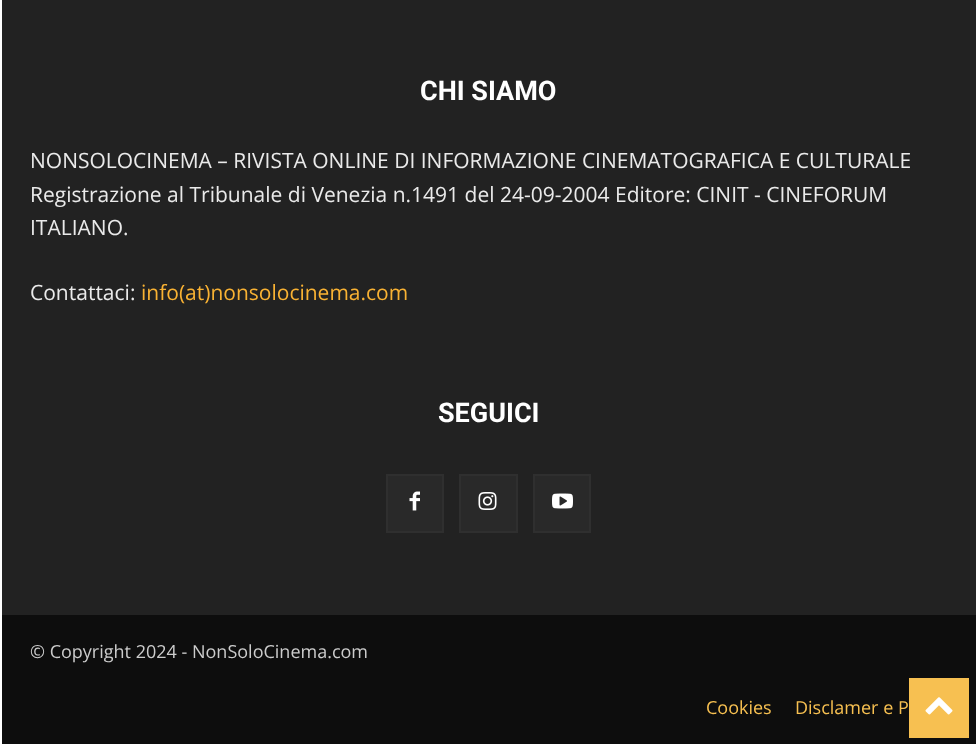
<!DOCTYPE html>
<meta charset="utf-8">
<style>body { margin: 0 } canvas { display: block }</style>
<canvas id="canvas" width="976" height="744"></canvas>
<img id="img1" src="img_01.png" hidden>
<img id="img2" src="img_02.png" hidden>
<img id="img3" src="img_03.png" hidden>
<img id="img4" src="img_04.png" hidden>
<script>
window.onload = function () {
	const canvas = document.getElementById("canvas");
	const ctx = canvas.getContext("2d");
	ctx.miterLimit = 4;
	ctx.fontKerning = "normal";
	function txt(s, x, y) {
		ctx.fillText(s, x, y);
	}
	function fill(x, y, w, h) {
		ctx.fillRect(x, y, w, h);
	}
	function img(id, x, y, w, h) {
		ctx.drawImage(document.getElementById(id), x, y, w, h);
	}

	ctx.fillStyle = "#FFFFFF";
	fill(0, 0, 976, 744);
	ctx.fillStyle = "#222222";
	fill(2, 0, 974, 615);
	ctx.fillStyle = "#292929";
	ctx.beginPath();
	ctx.rect(387, 475, 56, 57);
	ctx.fill();
	ctx.strokeStyle = "#2F2F2F";
	ctx.lineWidth = 2;
	ctx.stroke();
	img("img1", 409, 491, 11, 20);
	ctx.beginPath();
	ctx.rect(460, 475, 57, 57);
	ctx.fill();
	ctx.stroke();
	img("img2", 478, 492, 19, 18);
	ctx.beginPath();
	ctx.rect(534, 475, 56, 57);
	ctx.fill();
	ctx.stroke();
	img("img3", 552, 493, 21, 16);
	ctx.fillStyle = "#0D0D0D";
	fill(2, 615, 974, 129);
	ctx.fillStyle = "#F7C051";
	fill(909, 678, 60, 60);
	img("img4", 925, 697, 28, 18);
	ctx.font = "bold 27px Roboto";
	ctx.fillStyle = "#FFFFFF";
	txt("CHI SIAMO", 420, 100);
	ctx.font = "21px Open Sans";
	ctx.fillStyle = "#EAEAEA";
	txt("NONSOLOCINEMA – RIVISTA ONLINE DI INFORMAZIONE CINEMATOGRAFICA E CULTURALE", 30, 168);
	txt("Registrazione al Tribunale di Venezia n.1491 del 24-09-2004 Editore: CINIT - CINEFORUM", 30, 202);
	txt("ITALIANO.", 30, 235);
	txt("Contattaci:", 30, 300);
	ctx.fillStyle = "#F9B233";
	txt("info(at)nonsolocinema.com", 141, 300);
	ctx.font = "bold 27px Roboto";
	ctx.fillStyle = "#FFFFFF";
	txt("SEGUICI", 438, 422);
	ctx.font = "18px Open Sans";
	ctx.fillStyle = "#CCCCCC";
	txt("© Copyright 2024 - NonSoloCinema.com", 30, 658);
	ctx.fillStyle = "#F7C051";
	txt("Cookies", 706, 714);
	txt("Disclamer e P", 795, 714);
};
</script>
